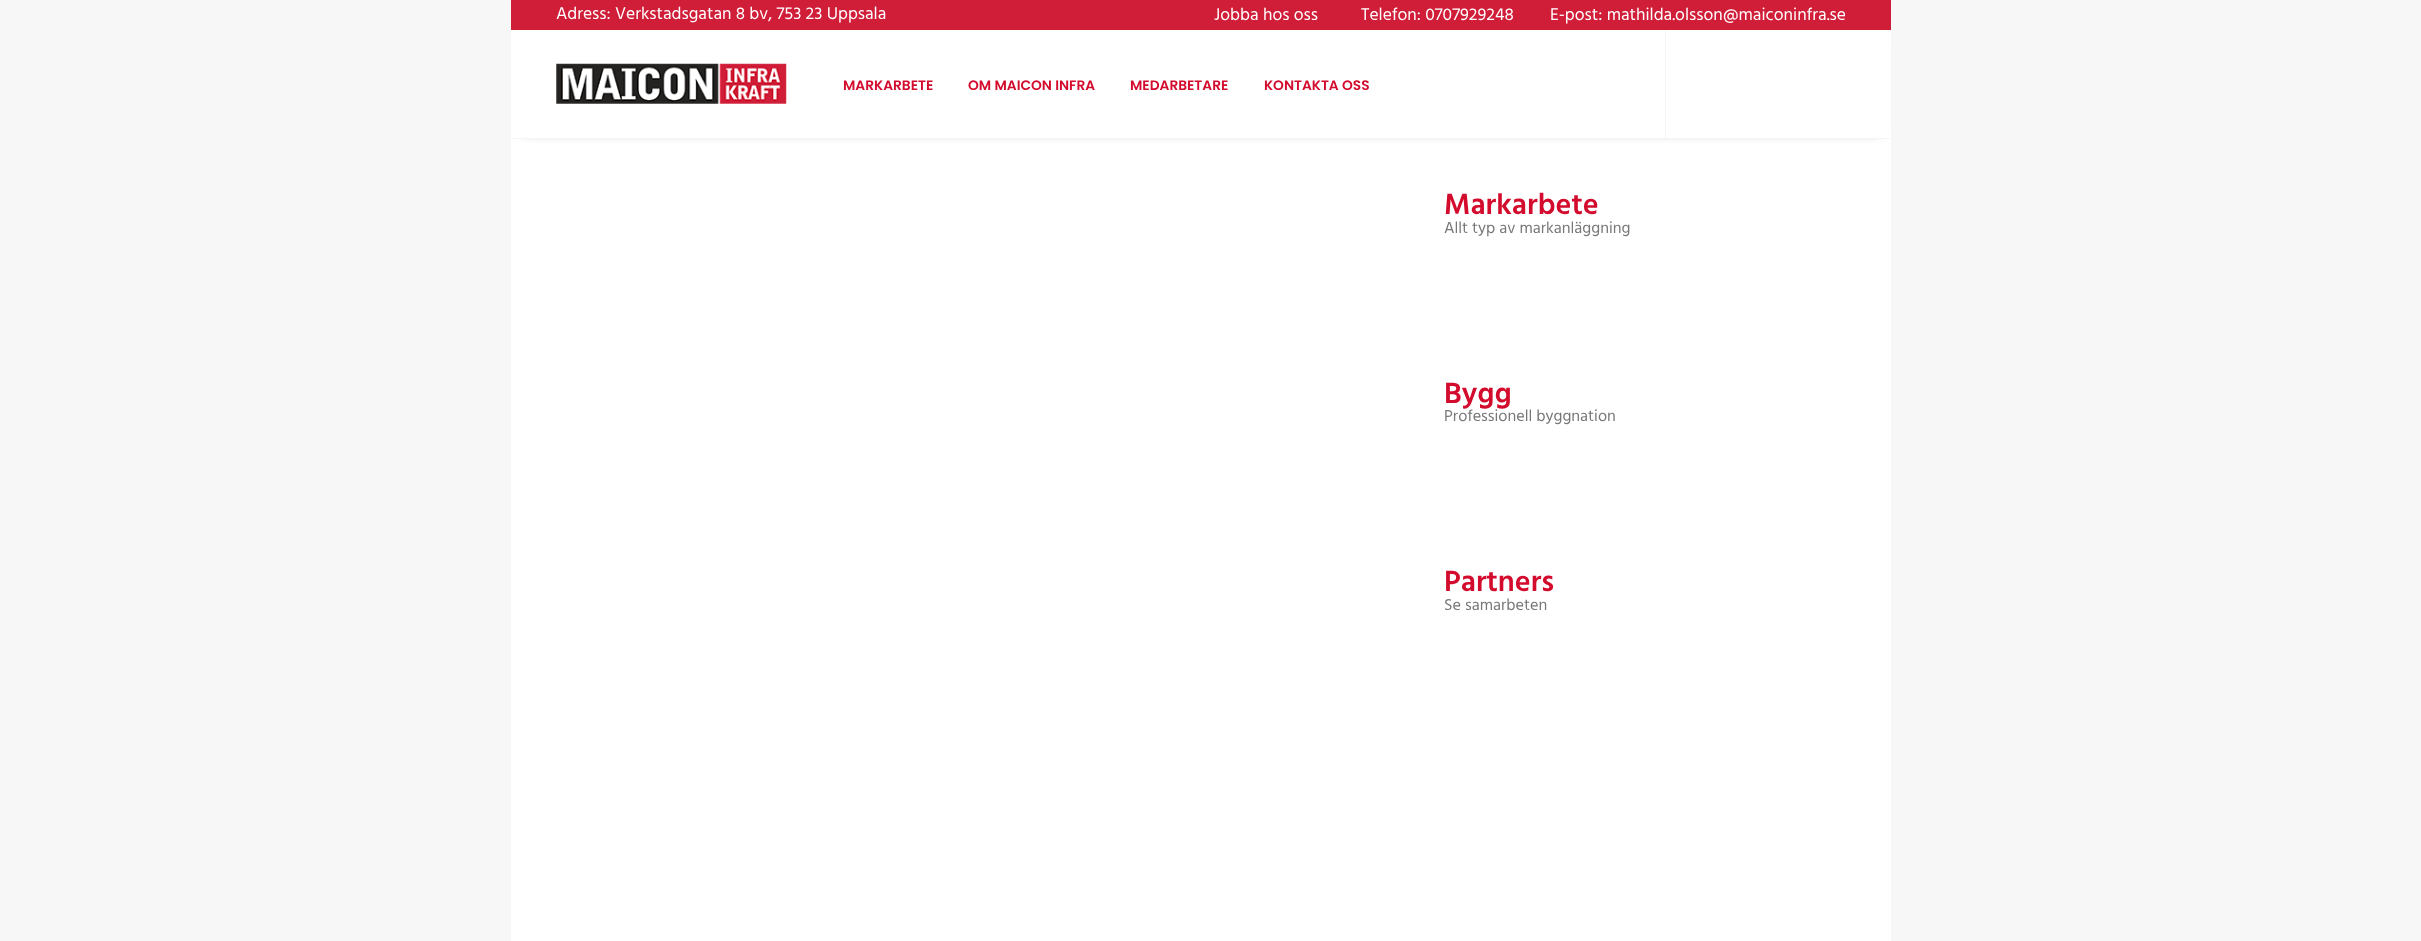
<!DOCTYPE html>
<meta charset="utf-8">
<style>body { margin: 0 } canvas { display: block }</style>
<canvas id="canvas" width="2421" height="941"></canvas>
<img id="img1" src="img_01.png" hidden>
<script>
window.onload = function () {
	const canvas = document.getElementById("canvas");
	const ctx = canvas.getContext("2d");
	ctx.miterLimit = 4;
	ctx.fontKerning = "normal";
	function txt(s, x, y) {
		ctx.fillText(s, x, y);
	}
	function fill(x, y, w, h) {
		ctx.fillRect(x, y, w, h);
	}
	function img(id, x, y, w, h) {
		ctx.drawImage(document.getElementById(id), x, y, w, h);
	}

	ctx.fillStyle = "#F7F7F7";
	fill(0, 0, 2421, 941);
	ctx.fillStyle = "#FFFFFF";
	fill(511, 139, 1380, 802);
	ctx.fillStyle = "rgba(0, 0, 0, 0.6)";
	ctx.filter = "blur(6px)";
	ctx.beginPath();
	ctx.rect(524, 48, 1355, 83);
	ctx.fill();
	ctx.filter = "none";
	ctx.fillStyle = "#D01D38";
	fill(511, 0, 1380, 30);
	ctx.fillStyle = "#FFFFFF";
	fill(511, 30, 1380, 108);
	ctx.fillStyle = "#F5F5F5";
	fill(521, 138, 1361, 1);
	img("img1", 556, 63, 231, 41);
	fill(1665, 30, 1, 108);
	ctx.font = "17.5px Hind";
	ctx.fillStyle = "#FFFFFF";
	txt("Adress: Verkstadsgatan 8 bv, 753 23 Uppsala", 556, 19);
	txt("Jobba hos oss", 1214, 20);
	txt("Telefon: 0707929248", 1361, 20);
	txt("E-post: mathilda.olsson@maiconinfra.se", 1550, 20);
	ctx.font = "600 13.75px Poppins";
	ctx.fillStyle = "#D30B2C";
	txt("MARKARBETE", 843, 90);
	txt("OM MAICON INFRA", 968, 90);
	txt("MEDARBETARE", 1130, 90);
	txt("KONTAKTA OSS", 1264, 90);
	ctx.font = "600 30px Hind";
	txt("Markarbete", 1444, 214);
	ctx.font = "16.25px Hind";
	ctx.fillStyle = "#777777";
	txt("Allt typ av markanläggning", 1444, 233);
	ctx.font = "600 30px Hind";
	ctx.fillStyle = "#D30B2C";
	txt("Bygg", 1444, 403);
	ctx.font = "16.25px Hind";
	ctx.fillStyle = "#777777";
	txt("Professionell byggnation", 1444, 421);
	ctx.font = "600 30px Hind";
	ctx.fillStyle = "#D30B2C";
	txt("Partners", 1444, 591);
	ctx.font = "16.25px Hind";
	ctx.fillStyle = "#777777";
	txt("Se samarbeten", 1444, 610);
};
</script>
